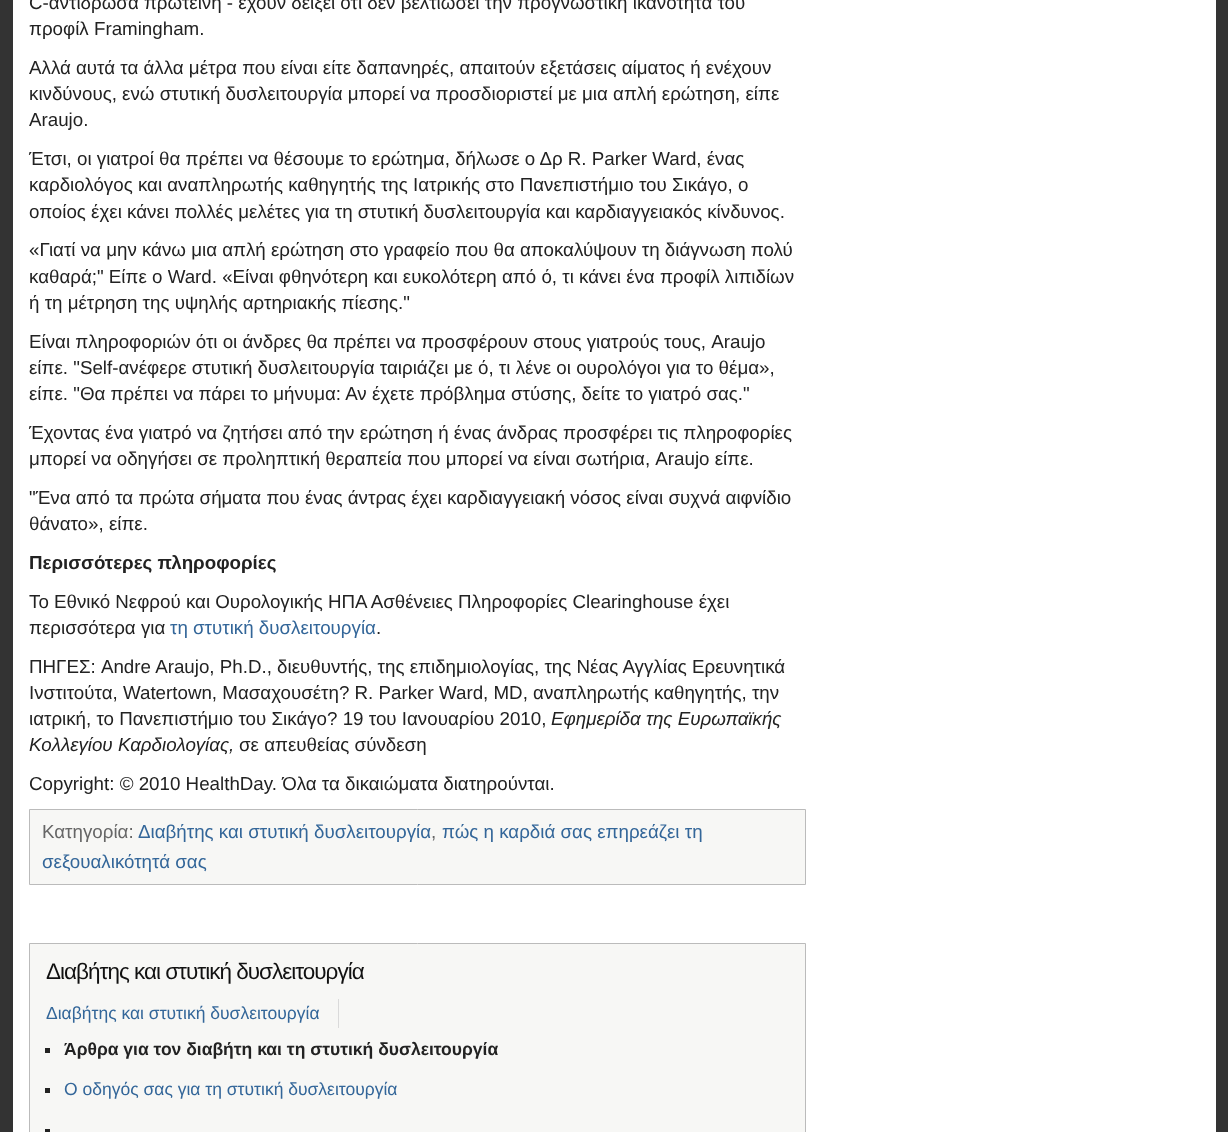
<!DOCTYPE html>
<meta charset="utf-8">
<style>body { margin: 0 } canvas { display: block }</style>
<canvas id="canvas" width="1228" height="1132"></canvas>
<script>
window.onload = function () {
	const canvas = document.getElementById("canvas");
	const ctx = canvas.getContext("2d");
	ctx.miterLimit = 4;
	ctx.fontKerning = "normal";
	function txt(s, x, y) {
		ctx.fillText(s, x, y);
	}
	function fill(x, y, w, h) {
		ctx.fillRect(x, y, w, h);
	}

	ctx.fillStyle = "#333333";
	fill(0, 0, 1228, 1132);
	ctx.fillStyle = "#FFFFFF";
	fill(13, 0, 1203, 1132);
	ctx.fillStyle = "#F7F7F5";
	ctx.beginPath();
	ctx.rect(29.5, 809.5, 776, 75);
	ctx.fill();
	ctx.strokeStyle = "#BBBBBB";
	ctx.stroke();
	ctx.beginPath();
	ctx.rect(29.5, 943.5, 776, 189);
	ctx.fill();
	ctx.stroke();
	ctx.fillStyle = "#DADADA";
	fill(338, 999, 1, 29);
	ctx.fillStyle = "#222222";
	fill(45, 1048, 5, 5);
	fill(45, 1088, 5, 5);
	fill(45, 1129, 5, 3);
	ctx.font = "18.75px Liberation Sans";
	txt("C-αντιδρώσα πρωτεΐνη - έχουν δείξει ότι δεν βελτιώσει την προγνωστική ικανότητα του", 29, 9);
	txt("προφίλ Framingham.", 29, 35);
	txt("Αλλά αυτά τα άλλα μέτρα που είναι είτε δαπανηρές, απαιτούν εξετάσεις αίματος ή ενέχουν", 29, 74);
	txt("κινδύνους, ενώ στυτική δυσλειτουργία μπορεί να προσδιοριστεί με μια απλή ερώτηση, είπε", 29, 100);
	txt("Araujo.", 29, 126);
	txt("Έτσι, οι γιατροί θα πρέπει να θέσουμε το ερώτημα, δήλωσε ο Δρ R. Parker Ward, ένας", 29, 165);
	txt("καρδιολόγος και αναπληρωτής καθηγητής της Ιατρικής στο Πανεπιστήμιο του Σικάγο, ο", 29, 191);
	txt("οποίος έχει κάνει πολλές μελέτες για τη στυτική δυσλειτουργία και καρδιαγγειακός κίνδυνος.", 29, 218);
	txt("«Γιατί να μην κάνω μια απλή ερώτηση στο γραφείο που θα αποκαλύψουν τη διάγνωση πολύ", 29, 256);
	txt("καθαρά;\" Είπε ο Ward. «Είναι φθηνότερη και ευκολότερη από ό, τι κάνει ένα προφίλ λιπιδίων", 29, 283);
	txt("ή τη μέτρηση της υψηλής αρτηριακής πίεσης.\"", 29, 309);
	txt("Είναι πληροφοριών ότι οι άνδρες θα πρέπει να προσφέρουν στους γιατρούς τους, Araujo", 29, 348);
	txt("είπε. \"Self-ανέφερε στυτική δυσλειτουργία ταιριάζει με ό, τι λένε οι ουρολόγοι για το θέμα»,", 29, 374);
	txt("είπε. \"Θα πρέπει να πάρει το μήνυμα: Αν έχετε πρόβλημα στύσης, δείτε το γιατρό σας.\"", 29, 400);
	txt("Έχοντας ένα γιατρό να ζητήσει από την ερώτηση ή ένας άνδρας προσφέρει τις πληροφορίες", 29, 439);
	txt("μπορεί να οδηγήσει σε προληπτική θεραπεία που μπορεί να είναι σωτήρια, Araujo είπε.", 29, 465);
	txt("\"Ένα από τα πρώτα σήματα που ένας άντρας έχει καρδιαγγειακή νόσος είναι συχνά αιφνίδιο", 29, 504);
	txt("θάνατο», είπε.", 29, 530);
	ctx.font = "bold 18.75px Liberation Sans";
	txt("Περισσότερες πληροφορίες", 29, 569);
	ctx.font = "18.75px Liberation Sans";
	txt("Το Εθνικό Νεφρού και Ουρολογικής ΗΠΑ Ασθένειες Πληροφορίες Clearinghouse έχει", 29, 608);
	txt("περισσότερα για", 29, 634);
	ctx.fillStyle = "#336699";
	txt("τη στυτική δυσλειτουργία", 170, 634);
	ctx.fillStyle = "#222222";
	txt(".", 376, 634);
	txt("ΠΗΓΕΣ: Andre Araujo, Ph.D., διευθυντής, της επιδημιολογίας, της Νέας Αγγλίας Ερευνητικά", 29, 673);
	txt("Ινστιτούτα, Watertown, Μασαχουσέτη? R. Parker Ward, MD, αναπληρωτής καθηγητής, την", 29, 699);
	txt("ιατρική, το Πανεπιστήμιο του Σικάγο? 19 του Ιανουαρίου 2010,", 29, 725);
	ctx.font = "italic 18.75px Liberation Sans";
	txt("Εφημερίδα της Ευρωπαϊκής", 551, 725);
	txt("Κολλεγίου Καρδιολογίας,", 29, 751);
	ctx.font = "18.75px Liberation Sans";
	txt("σε απευθείας σύνδεση", 239, 751);
	txt("Copyright: © 2010 HealthDay. Όλα τα δικαιώματα διατηρούνται.", 29, 790);
	ctx.fillStyle = "#666666";
	txt("Κατηγορία:", 42, 838);
	ctx.fillStyle = "#336699";
	txt("Διαβήτης και στυτική δυσλειτουργία", 138, 838);
	ctx.fillStyle = "#666666";
	txt(",", 431, 838);
	ctx.fillStyle = "#336699";
	txt("πώς η καρδιά σας επηρεάζει τη", 442, 838);
	txt("σεξουαλικότητά σας", 42, 868);
	ctx.letterSpacing = "-1px";
	ctx.font = "22.5px Liberation Sans";
	ctx.fillStyle = "#111111";
	txt("Διαβήτης και στυτική δυσλειτουργία", 46, 979);
	ctx.letterSpacing = "0px";
	ctx.font = "17.5px Liberation Sans";
	ctx.fillStyle = "#336699";
	txt("Διαβήτης και στυτική δυσλειτουργία", 46, 1019);
	ctx.font = "bold 17.5px Liberation Sans";
	ctx.fillStyle = "#222222";
	txt("Άρθρα για τον διαβήτη και τη στυτική δυσλειτουργία", 64, 1055);
	ctx.font = "17.5px Liberation Sans";
	ctx.fillStyle = "#336699";
	txt("Ο οδηγός σας για τη στυτική δυσλειτουργία", 64, 1095);
};
</script>
